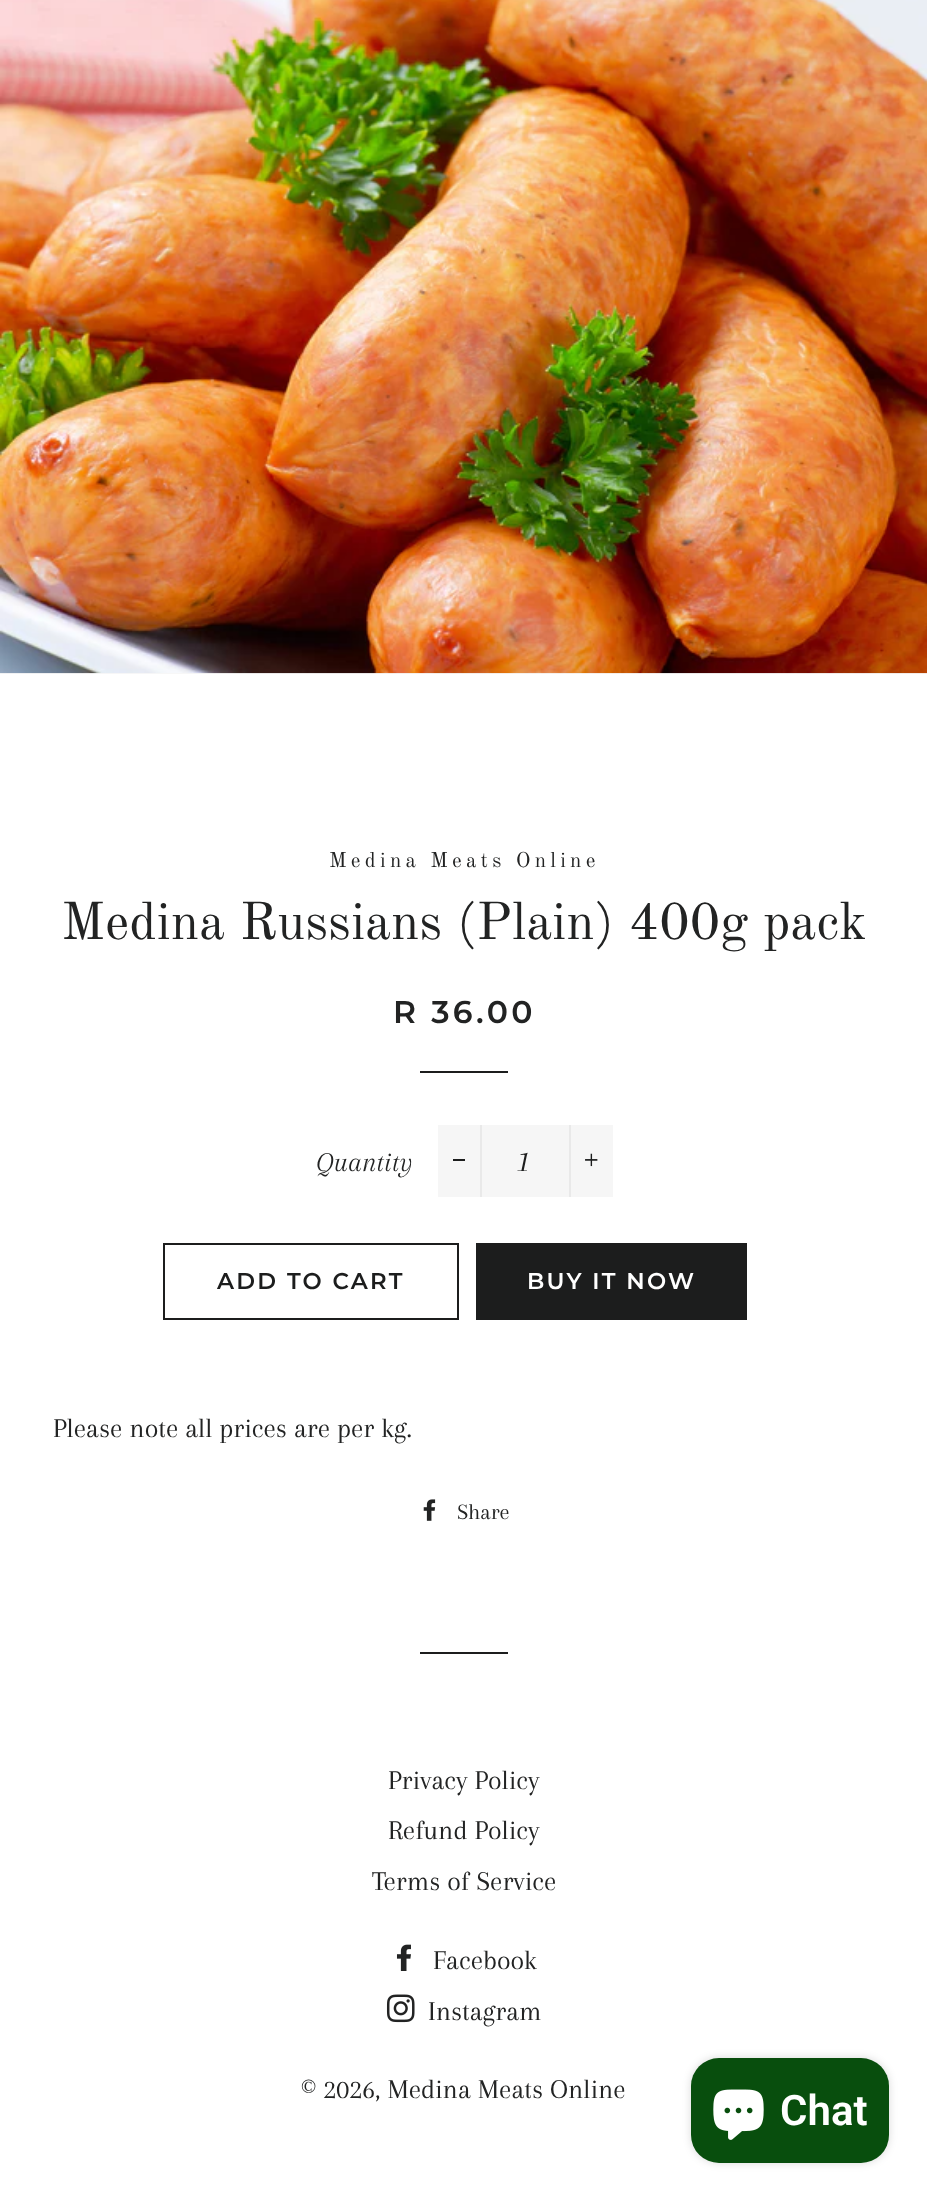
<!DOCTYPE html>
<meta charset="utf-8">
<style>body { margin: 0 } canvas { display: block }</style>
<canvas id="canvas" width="927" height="2199"></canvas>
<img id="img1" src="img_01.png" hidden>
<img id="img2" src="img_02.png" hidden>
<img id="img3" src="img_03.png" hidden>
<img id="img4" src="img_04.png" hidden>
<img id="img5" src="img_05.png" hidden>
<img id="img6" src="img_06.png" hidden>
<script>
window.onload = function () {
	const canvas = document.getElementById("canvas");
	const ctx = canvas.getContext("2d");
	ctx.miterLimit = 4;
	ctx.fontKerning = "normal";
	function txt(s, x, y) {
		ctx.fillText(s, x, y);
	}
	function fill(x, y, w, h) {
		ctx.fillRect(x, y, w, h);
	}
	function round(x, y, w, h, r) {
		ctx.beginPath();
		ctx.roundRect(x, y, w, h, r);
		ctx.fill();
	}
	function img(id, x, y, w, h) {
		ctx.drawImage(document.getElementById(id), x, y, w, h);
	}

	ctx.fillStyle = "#FFFFFF";
	fill(0, 0, 927, 2199);
	ctx.fillStyle = "#F7F7F7";
	fill(0, 673, 927, 1);
	img("img1", 0, 0, 927, 674);
	ctx.fillStyle = "#1C1D1D";
	fill(420, 1071, 88, 2);
	ctx.fillStyle = "#F6F6F6";
	fill(438, 1125, 175, 72);
	ctx.fillStyle = "#E9E9E9";
	fill(480, 1125, 2, 72);
	ctx.fillStyle = "#1C1D1D";
	fill(453, 1159, 12, 2);
	ctx.fillStyle = "#E9E9E9";
	fill(569, 1125, 2, 72);
	img("img2", 585, 1153, 13, 14);
	ctx.strokeStyle = "#1C1D1D";
	ctx.lineWidth = 2;
	ctx.strokeRect(164, 1244, 294, 75);
	ctx.fillStyle = "#1C1D1D";
	fill(476, 1243, 271, 77);
	img("img3", 423, 1499, 13, 22);
	fill(420, 1652, 88, 2);
	img("img4", 396, 1944, 15, 27);
	img("img5", 386, 1994, 29, 29);
	ctx.fillStyle = "rgba(0, 0, 0, 0.15)";
	ctx.filter = "blur(4.5px)";
	ctx.beginPath();
	ctx.roundRect(691, 2058, 198, 105, 28);
	ctx.fill();
	ctx.filter = "none";
	ctx.fillStyle = "#084E0D";
	round(691, 2058, 198, 105, 28);
	img("img6", 713, 2089, 51, 51);
	ctx.letterSpacing = "4.25px";
	ctx.font = "21px Old Standard TT";
	ctx.fillStyle = "#222323";
	txt("Medina Meats Online", 329, 867);
	ctx.letterSpacing = "0px";
	ctx.font = "52.5px Old Standard TT";
	txt("Medina Russians (Plain) 400g pack", 61, 939);
	ctx.letterSpacing = "3.25px";
	ctx.font = "600 31.5px Montserrat";
	txt("R 36.00", 393, 1023);
	ctx.letterSpacing = "0px";
	ctx.font = "italic 28px Arapey";
	txt("Quantity", 316, 1171);
	ctx.font = "italic 31.5px Arapey";
	ctx.fillStyle = "#1C1D1D";
	txt("1", 519, 1171);
	ctx.letterSpacing = "2.25px";
	ctx.font = "600 22.75px Montserrat";
	txt("ADD TO CART", 217, 1289);
	ctx.fillStyle = "#FFFFFF";
	txt("BUY IT NOW", 527, 1289);
	ctx.letterSpacing = "0px";
	ctx.font = "28px Arapey";
	ctx.fillStyle = "#222323";
	txt("Please note all prices are per kg.", 53, 1437);
	ctx.font = "22.75px Arapey";
	txt("Share", 457, 1519);
	ctx.font = "28px Arapey";
	txt("Privacy Policy", 388, 1789);
	txt("Refund Policy", 388, 1839);
	txt("Terms of Service", 372, 1890);
	txt("Facebook", 433, 1969);
	txt("Instagram", 428, 2020);
	txt("© 2026, Medina Meats Online", 301, 2098);
	ctx.font = "600 42px Roboto";
	ctx.fillStyle = "#FFFFFF";
	txt("Chat", 780, 2125);
};
</script>
